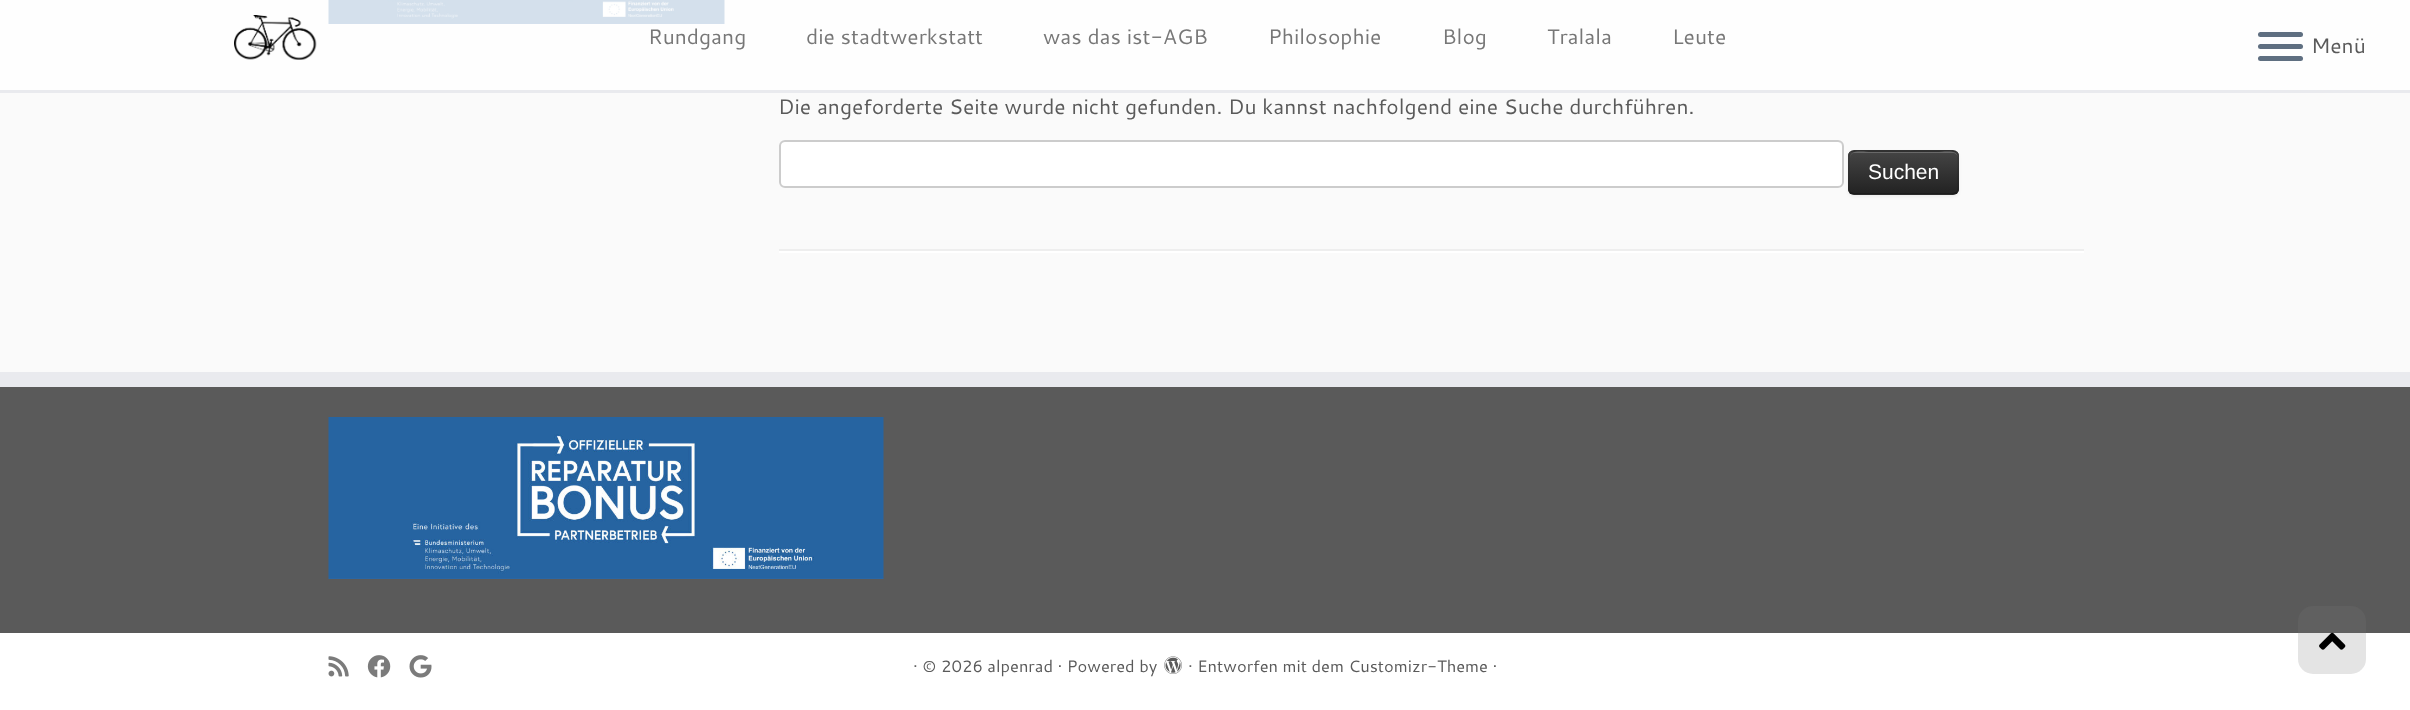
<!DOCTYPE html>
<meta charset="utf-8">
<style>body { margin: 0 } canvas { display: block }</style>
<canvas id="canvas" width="2410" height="710"></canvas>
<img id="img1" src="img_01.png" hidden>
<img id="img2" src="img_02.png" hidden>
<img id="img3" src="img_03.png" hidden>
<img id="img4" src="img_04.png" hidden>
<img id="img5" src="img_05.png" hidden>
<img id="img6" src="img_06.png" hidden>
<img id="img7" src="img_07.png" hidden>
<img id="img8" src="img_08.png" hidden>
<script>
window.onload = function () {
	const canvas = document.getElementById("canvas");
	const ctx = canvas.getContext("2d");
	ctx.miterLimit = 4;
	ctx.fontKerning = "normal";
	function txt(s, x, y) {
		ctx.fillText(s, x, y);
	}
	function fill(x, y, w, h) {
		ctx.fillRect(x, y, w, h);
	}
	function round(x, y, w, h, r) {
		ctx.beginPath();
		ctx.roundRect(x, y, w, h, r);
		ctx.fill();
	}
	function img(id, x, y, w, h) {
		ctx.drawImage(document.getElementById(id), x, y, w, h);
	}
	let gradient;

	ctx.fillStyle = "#FAFAFA";
	fill(0, 0, 2410, 710);
	ctx.fillStyle = "#FEFEFE";
	fill(0, 0, 2410, 90);
	ctx.fillStyle = "#E9EAEE";
	fill(0, 90, 2410, 3);
	img("img1", 234, 15, 83, 45);
	ctx.fillStyle = "#5F6F81";
	round(2258, 32, 45, 5, 2.5);
	round(2258, 44, 45, 5, 2.5);
	round(2258, 56, 45, 5, 2.5);
	img("img2", 328, 0, 397, 24);
	ctx.fillStyle = "#FFFFFF";
	round(779, 140, 1065, 48, 6);
	ctx.fillStyle = "#ECECEC";
	ctx.beginPath();
	ctx.moveTo(784, 142);
	ctx.lineTo(1838, 142);
	ctx.bezierCurveTo(1840, 142, 1842, 145, 1842, 147);
	ctx.bezierCurveTo(1842, 144, 1840, 141, 1837, 141);
	ctx.lineTo(785, 141);
	ctx.bezierCurveTo(782, 141, 780, 144, 780, 147);
	ctx.bezierCurveTo(780, 145, 782, 142, 784, 142);
	ctx.closePath();
	ctx.fill();
	ctx.beginPath();
	ctx.roundRect(780, 141, 1063, 46, 5);
	ctx.strokeStyle = "#CCCCCC";
	ctx.lineWidth = 2;
	ctx.stroke();
	ctx.fillStyle = "rgba(0, 0, 0, 0.05)";
	ctx.filter = "blur(1.5px)";
	ctx.beginPath();
	ctx.roundRect(1848, 152, 111, 45, 6);
	ctx.fill();
	ctx.filter = "none";
	ctx.fillStyle = "#363636";
	round(1848, 150, 111, 45, 6);
	ctx.save();
	ctx.beginPath();
	ctx.roundRect(1848, 150, 111, 45, 6);
	ctx.clip();
	gradient = ctx.createLinearGradient(1904, 152, 1904, 194);
	gradient.addColorStop(0, "#444444");
	gradient.addColorStop(1, "#222222");
	ctx.fillStyle = gradient;
	fill(1848, 152, 111, 42);
	ctx.restore();
	ctx.fillStyle = "rgba(255, 255, 255, 0.2)";
	ctx.beginPath();
	ctx.moveTo(1854, 153);
	ctx.lineTo(1953, 153);
	ctx.bezierCurveTo(1955, 153, 1958, 155, 1958, 158);
	ctx.bezierCurveTo(1958, 148, 1942, 152, 1937, 152);
	ctx.lineTo(1871, 152);
	ctx.bezierCurveTo(1866, 152, 1850, 148, 1850, 158);
	ctx.bezierCurveTo(1850, 155, 1852, 153, 1854, 153);
	ctx.closePath();
	ctx.fill();
	ctx.beginPath();
	ctx.moveTo(1956.5, 192.5);
	ctx.lineTo(1953.5, 194);
	ctx.lineTo(1853.5, 194);
	ctx.lineTo(1850.5, 192.5);
	ctx.strokeStyle = "rgba(0, 0, 0, 0.25)";
	ctx.lineWidth = 1.5;
	ctx.stroke();
	ctx.beginPath();
	ctx.moveTo(1850.5, 192.5);
	ctx.bezierCurveTo(1848, 190.5, 1849, 186.5, 1849, 183.5);
	ctx.lineTo(1849, 172.5);
	ctx.bezierCurveTo(1849, 148, 1845, 151, 1870.5, 151);
	ctx.lineTo(1936.5, 151);
	ctx.bezierCurveTo(1962, 151, 1958, 148, 1958, 172.5);
	ctx.lineTo(1958, 183.5);
	ctx.bezierCurveTo(1958, 186.5, 1959, 190.5, 1956.5, 192.5);
	ctx.strokeStyle = "rgba(0, 0, 0, 0.1)";
	ctx.stroke();
	ctx.fillStyle = "#EEEEEE";
	fill(779, 249, 1305, 2);
	ctx.fillStyle = "#FFFFFF";
	fill(779, 251, 1305, 2);
	ctx.fillStyle = "#5A5A5A";
	fill(0, 387, 2410, 246);
	ctx.fillStyle = "#E9EAEE";
	fill(0, 372, 2410, 15);
	img("img3", 328, 417, 556, 162);
	ctx.fillStyle = "#FFFFFF";
	fill(0, 633, 2410, 77);
	img("img4", 328, 656, 21, 21);
	img("img5", 367, 655, 24, 23);
	img("img6", 409, 655, 23, 23);
	img("img7", 1164, 656, 18, 18);
	ctx.fillStyle = "rgba(119, 119, 119, 0.2)";
	round(2298, 606, 68, 68, 15);
	img("img8", 2319, 632, 27, 18);
	ctx.font = "21px Cantarell";
	ctx.fillStyle = "#777777";
	txt("Rundgang", 648, 44);
	txt("die stadtwerkstatt", 806, 44);
	txt("was das ist-AGB", 1043, 44);
	txt("Philosophie", 1268, 44);
	txt("Blog", 1442, 44);
	txt("Tralala", 1547, 44);
	txt("Leute", 1672, 44);
	ctx.fillStyle = "#5A5A5A";
	txt("Menü", 2311, 53);
	txt("Die angeforderte Seite wurde nicht gefunden. Du kannst nachfolgend eine Suche durchführen.", 778, 114);
	ctx.font = "21px Liberation Sans";
	ctx.fillStyle = "#FFFFFF";
	txt("Suchen", 1868, 179);
	ctx.font = "16.5px Cantarell";
	ctx.fillStyle = "#5A5A5A";
	txt("· © 2026 alpenrad · Powered by", 913, 672);
	txt("· Entworfen mit dem Customizr-Theme ·", 1188, 672);
};
</script>
